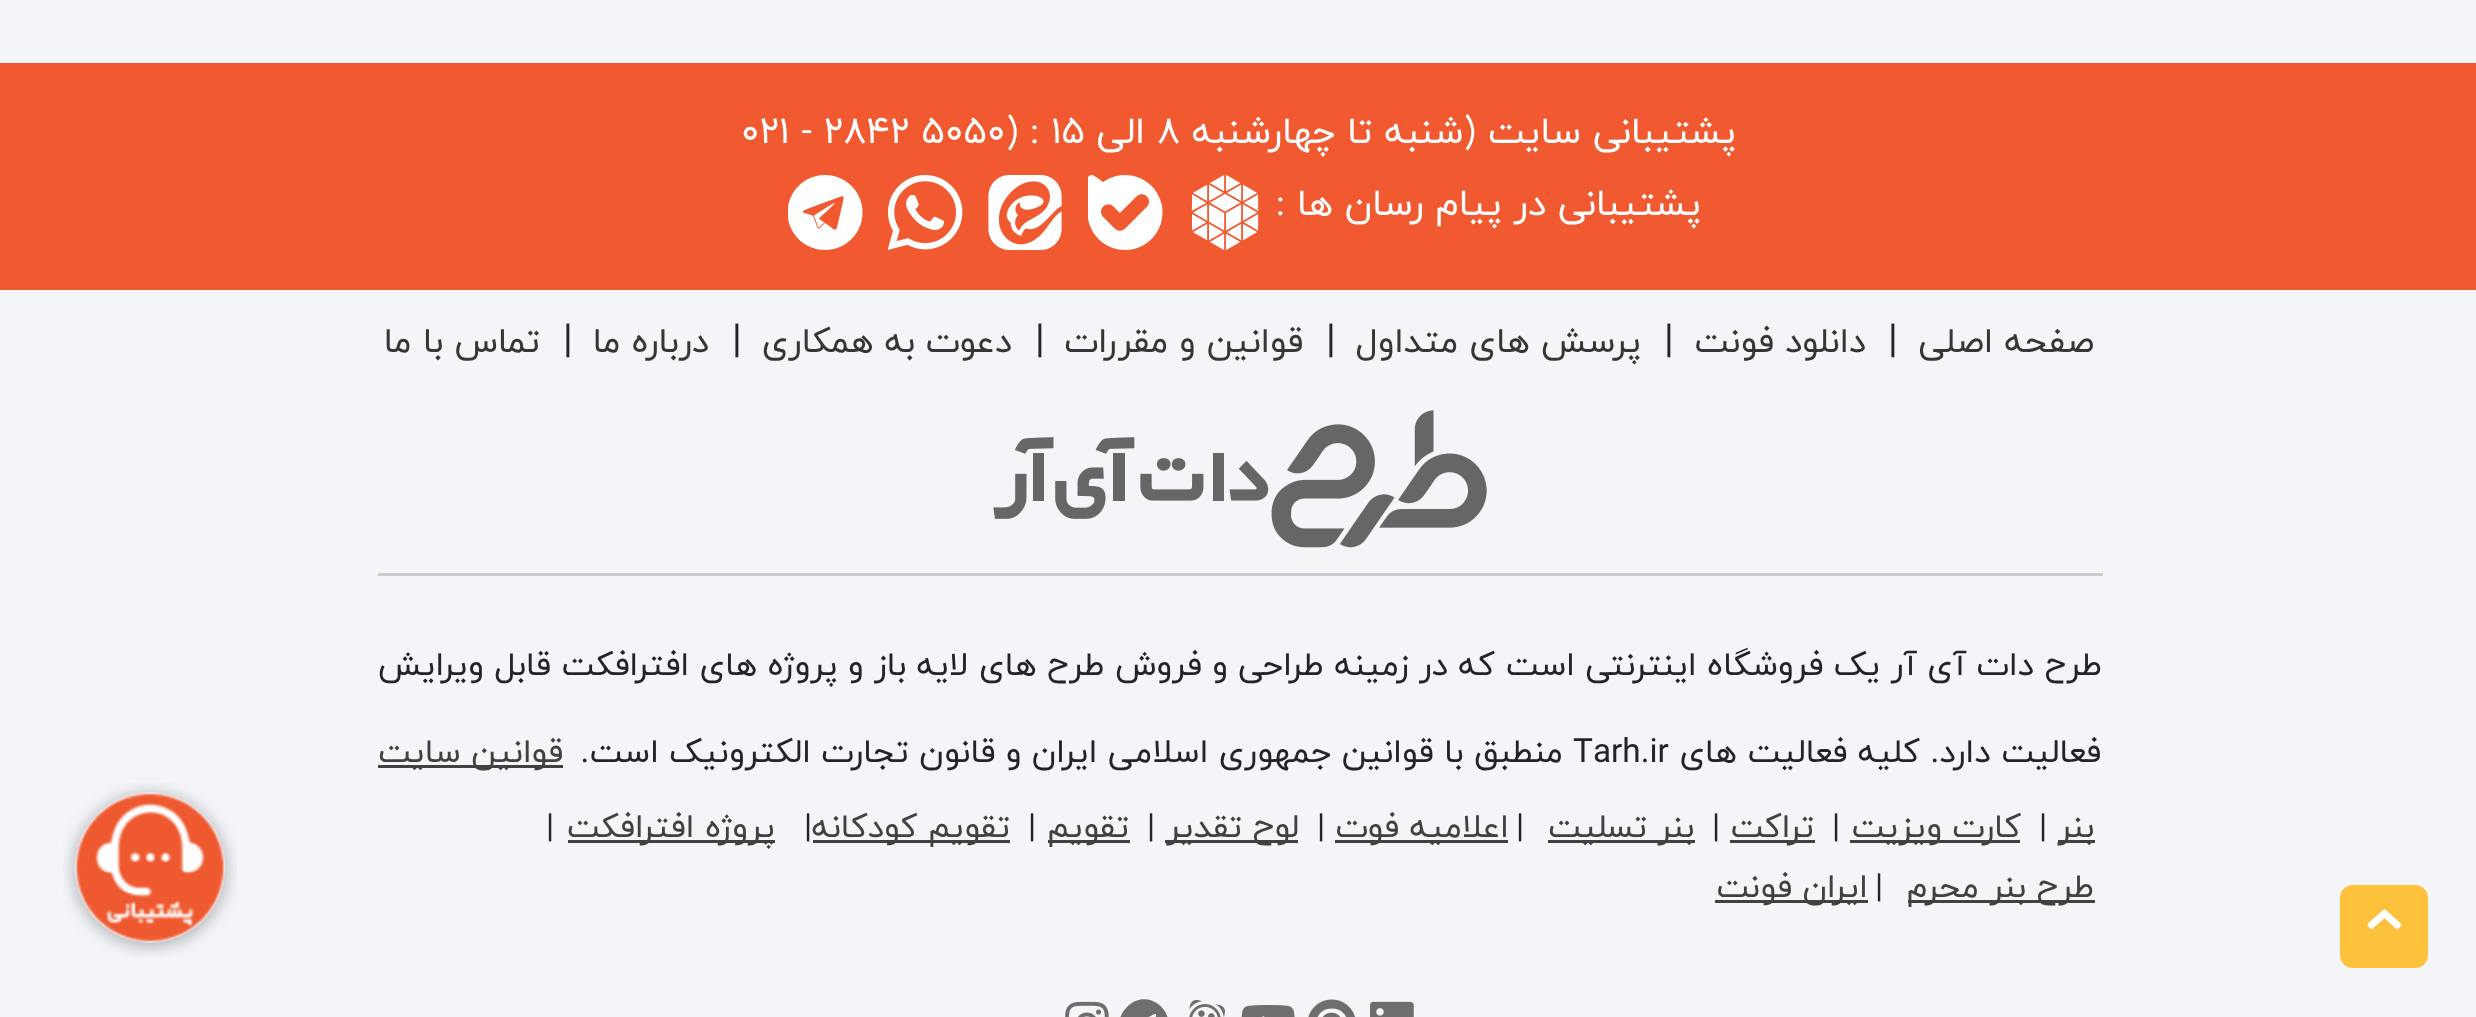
<!DOCTYPE html>
<meta charset="utf-8">
<style>body { margin: 0 } canvas { display: block }</style>
<canvas id="canvas" width="2476" height="1017"></canvas>
<img id="img1" src="img_01.png" hidden>
<img id="img2" src="img_02.png" hidden>
<img id="img3" src="img_03.png" hidden>
<img id="img4" src="img_04.png" hidden>
<img id="img5" src="img_05.png" hidden>
<img id="img6" src="img_06.png" hidden>
<img id="img7" src="img_07.png" hidden>
<img id="img8" src="img_08.png" hidden>
<img id="img9" src="img_09.png" hidden>
<img id="img10" src="img_10.png" hidden>
<img id="img11" src="img_11.png" hidden>
<img id="img12" src="img_12.png" hidden>
<img id="img13" src="img_13.png" hidden>
<script>
window.onload = function () {
	const canvas = document.getElementById("canvas");
	const ctx = canvas.getContext("2d");
	ctx.miterLimit = 4;
	ctx.fontKerning = "normal";
	function txt(s, x, y) {
		ctx.fillText(s, x, y);
	}
	function fill(x, y, w, h) {
		ctx.fillRect(x, y, w, h);
	}
	function round(x, y, w, h, r) {
		ctx.beginPath();
		ctx.roundRect(x, y, w, h, r);
		ctx.fill();
	}
	function img(id, x, y, w, h) {
		ctx.drawImage(document.getElementById(id), x, y, w, h);
	}

	ctx.fillStyle = "#F3F5F9";
	fill(0, 0, 2476, 1017);
	ctx.fillStyle = "#FDC13C";
	round(2340, 885, 88, 83, 13);
	img("img1", 2367, 909, 35, 21);
	ctx.fillStyle = "#F15A31";
	fill(0, 63, 2476, 227);
	img("img2", 1191, 175, 68, 75);
	img("img3", 1088, 175, 75, 75);
	img("img4", 988, 175, 74, 75);
	img("img5", 888, 175, 75, 75);
	img("img6", 788, 175, 75, 75);
	img("img7", 993, 410, 494, 138);
	ctx.fillStyle = "#CCCCCC";
	fill(378, 573, 1725, 3);
	ctx.fillStyle = "#414141";
	fill(378, 765, 185, 3);
	fill(2058, 840, 37, 3);
	fill(1850, 840, 170, 3);
	fill(1730, 840, 85, 3);
	fill(1548, 840, 147, 3);
	fill(1335, 840, 173, 3);
	fill(1165, 840, 133, 3);
	fill(1048, 840, 82, 3);
	fill(813, 840, 197, 3);
	fill(568, 840, 207, 3);
	fill(1908, 900, 187, 3);
	fill(1715, 900, 153, 3);
	img("img8", 1370, 1001, 44, 16);
	img("img9", 1308, 999, 47, 18);
	img("img10", 1241, 1005, 54, 12);
	img("img11", 1189, 999, 36, 18);
	ctx.fillStyle = "#6E6E6E";
	ctx.beginPath();
	ctx.moveTo(1127, 1007);
	ctx.bezierCurveTo(1150, 984, 1184, 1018, 1161, 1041);
	ctx.bezierCurveTo(1139, 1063, 1104, 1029, 1127, 1007);
	ctx.closePath();
	ctx.moveTo(1156, 1016);
	ctx.bezierCurveTo(1157, 1012, 1152, 1015, 1151, 1016);
	ctx.lineTo(1135, 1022);
	ctx.bezierCurveTo(1132, 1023, 1129, 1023, 1130, 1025);
	ctx.lineTo(1137, 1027);
	ctx.lineTo(1151, 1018);
	ctx.lineTo(1140, 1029);
	ctx.lineTo(1140, 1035);
	ctx.bezierCurveTo(1141, 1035, 1143, 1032, 1144, 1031);
	ctx.bezierCurveTo(1150, 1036, 1151, 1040, 1153, 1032);
	ctx.closePath();
	ctx.fill();
	img("img12", 1065, 1001, 44, 16);
	img("img13", 63, 783, 174, 174);
	ctx.direction = "rtl";
	ctx.font = "37.5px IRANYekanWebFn";
	ctx.fillStyle = "#FFFFFF";
	txt("پشتیبانی سایت (شنبه تا چهارشنبه", 1736, 143);
	ctx.direction = "ltr";
	txt("8", 1157, 143);
	ctx.direction = "rtl";
	txt("الی", 1145, 143);
	ctx.direction = "ltr";
	txt(") : 15", 1006, 143);
	txt("021 - 2842 5050", 741, 143);
	ctx.direction = "rtl";
	txt("پشتیبانی در پیام رسان ها :", 1701, 215);
	ctx.font = "35px IRANYekanWebFn";
	ctx.fillStyle = "#363636";
	txt("صفحه اصلی", 2094, 352);
	ctx.direction = "ltr";
	ctx.font = "40px IRANYekanWebFn";
	ctx.fillStyle = "#212529";
	txt("|", 1888, 352);
	ctx.direction = "rtl";
	ctx.font = "35px IRANYekanWebFn";
	ctx.fillStyle = "#363636";
	txt("دانلود فونت", 1866, 352);
	ctx.direction = "ltr";
	ctx.font = "40px IRANYekanWebFn";
	ctx.fillStyle = "#212529";
	txt("|", 1664, 352);
	ctx.direction = "rtl";
	ctx.font = "35px IRANYekanWebFn";
	ctx.fillStyle = "#363636";
	txt("پرسش های متداول", 1641, 352);
	ctx.direction = "ltr";
	ctx.font = "40px IRANYekanWebFn";
	ctx.fillStyle = "#212529";
	txt("|", 1326, 352);
	ctx.direction = "rtl";
	ctx.font = "35px IRANYekanWebFn";
	ctx.fillStyle = "#363636";
	txt("قوانین و مقررات", 1303, 352);
	ctx.direction = "ltr";
	ctx.font = "40px IRANYekanWebFn";
	ctx.fillStyle = "#212529";
	txt("|", 1035, 352);
	ctx.direction = "rtl";
	ctx.font = "35px IRANYekanWebFn";
	ctx.fillStyle = "#363636";
	txt("دعوت به همکاری", 1012, 352);
	ctx.direction = "ltr";
	ctx.font = "40px IRANYekanWebFn";
	ctx.fillStyle = "#212529";
	txt("|", 732, 352);
	ctx.direction = "rtl";
	ctx.font = "35px IRANYekanWebFn";
	ctx.fillStyle = "#363636";
	txt("درباره ما", 709, 352);
	ctx.direction = "ltr";
	ctx.font = "40px IRANYekanWebFn";
	ctx.fillStyle = "#212529";
	txt("|", 563, 352);
	ctx.direction = "rtl";
	ctx.font = "35px IRANYekanWebFn";
	ctx.fillStyle = "#363636";
	txt("تماس با ما", 540, 352);
	ctx.font = "33.33px IRANYekanWebFn";
	ctx.fillStyle = "#212529";
	txt("طرح دات آی آر یک فروشگاه اینترنتی است که در زمینه طراحی و فروش طرح های لایه باز و پروژه های افترافکت قابل ویرایش", 2102, 675);
	txt("فعالیت دارد. کلیه فعالیت های", 2101, 762);
	ctx.direction = "ltr";
	txt("Tarh.ir", 1573, 762);
	ctx.direction = "rtl";
	txt("منطبق با قوانین جمهوری اسلامی ایران و قانون تجارت الکترونیک است.", 1563, 762);
	ctx.fillStyle = "#414141";
	txt("قوانین سایت", 563, 762);
	txt("بنر", 2094, 837);
	ctx.direction = "ltr";
	ctx.fillStyle = "#212529";
	txt("|", 2039, 837);
	ctx.direction = "rtl";
	ctx.fillStyle = "#414141";
	txt("کارت ویزیت", 2021, 837);
	ctx.direction = "ltr";
	ctx.fillStyle = "#212529";
	txt("|", 1832, 837);
	ctx.direction = "rtl";
	ctx.fillStyle = "#414141";
	txt("تراکت", 1814, 837);
	ctx.direction = "ltr";
	ctx.fillStyle = "#212529";
	txt("|", 1712, 837);
	ctx.direction = "rtl";
	ctx.fillStyle = "#414141";
	txt("بنر تسلیت", 1694, 837);
	ctx.direction = "ltr";
	ctx.fillStyle = "#212529";
	txt("|", 1516, 837);
	ctx.direction = "rtl";
	ctx.fillStyle = "#414141";
	txt("اعلامیه فوت", 1509, 837);
	ctx.direction = "ltr";
	ctx.fillStyle = "#212529";
	txt("|", 1317, 837);
	ctx.direction = "rtl";
	ctx.fillStyle = "#414141";
	txt("لوح تقدیر", 1299, 837);
	ctx.direction = "ltr";
	ctx.fillStyle = "#212529";
	txt("|", 1147, 837);
	ctx.direction = "rtl";
	ctx.fillStyle = "#414141";
	txt("تقویم", 1129, 837);
	ctx.direction = "ltr";
	ctx.fillStyle = "#212529";
	txt("|", 1028, 837);
	ctx.direction = "rtl";
	ctx.fillStyle = "#414141";
	txt("تقویم کودکانه", 1010, 837);
	ctx.direction = "ltr";
	ctx.fillStyle = "#212529";
	txt("|", 804, 837);
	ctx.direction = "rtl";
	ctx.fillStyle = "#414141";
	txt("پروژه افترافکت", 775, 837);
	ctx.direction = "ltr";
	ctx.fillStyle = "#212529";
	txt("|", 546, 837);
	ctx.direction = "rtl";
	ctx.fillStyle = "#414141";
	txt("طرح بنر محرم", 2094, 897);
	ctx.direction = "ltr";
	ctx.fillStyle = "#212529";
	txt("|", 1875, 897);
	ctx.direction = "rtl";
	ctx.fillStyle = "#414141";
	txt("ایران فونت", 1868, 897);
};
</script>
